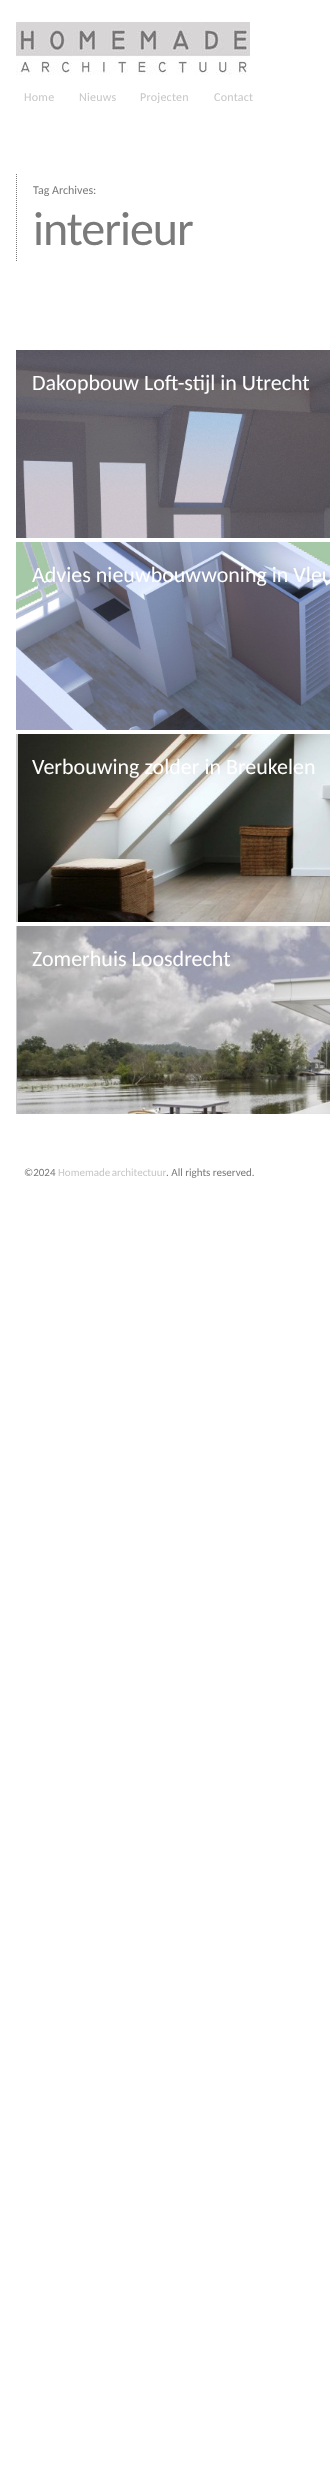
<!DOCTYPE html>
<meta charset="utf-8">
<style>body { margin: 0 } canvas { display: block }</style>
<canvas id="canvas" width="330" height="2483"></canvas>
<img id="img1" src="img_01.png" hidden>
<img id="img2" src="img_02.png" hidden>
<img id="img3" src="img_03.png" hidden>
<img id="img4" src="img_04.png" hidden>
<img id="img5" src="img_05.png" hidden>
<script>
window.onload = function () {
	const canvas = document.getElementById("canvas");
	const ctx = canvas.getContext("2d");
	ctx.miterLimit = 4;
	ctx.fontKerning = "normal";
	function txt(s, x, y) {
		ctx.fillText(s, x, y);
	}
	function fill(x, y, w, h) {
		ctx.fillRect(x, y, w, h);
	}
	function img(id, x, y, w, h) {
		ctx.drawImage(document.getElementById(id), x, y, w, h);
	}

	ctx.fillStyle = "#FFFFFF";
	fill(0, 0, 330, 2483);
	img("img1", 16, 22, 234, 53);
	ctx.beginPath();
	ctx.moveTo(16.5, 174);
	ctx.lineTo(16.5, 262);
	ctx.strokeStyle = "#7A7A7A";
	ctx.setLineDash([1, 1]);
	ctx.stroke();
	img("img2", 16, 350, 314, 188);
	img("img3", 16, 542, 314, 188);
	ctx.fillStyle = "#C7C7C7";
	fill(16, 734, 2, 188);
	img("img4", 18, 734, 312, 188);
	fill(16, 926, 1, 188);
	img("img5", 17, 926, 313, 188);
	ctx.letterSpacing = "0.25px";
	ctx.font = "12px Carlito";
	txt("Home", 24, 101);
	txt("Nieuws", 79, 101);
	txt("Projecten", 140, 101);
	txt("Contact", 214, 101);
	ctx.letterSpacing = "0px";
	ctx.fillStyle = "#7A7A7A";
	txt("Tag Archives:", 33, 194);
	ctx.letterSpacing = "-1px";
	ctx.font = "48px Carlito";
	txt("interieur", 33, 245);
	ctx.letterSpacing = "0px";
	ctx.font = "22px Carlito";
	ctx.fillStyle = "#FFFFFF";
	txt("Dakopbouw Loft-stijl in Utrecht", 32, 390);
	txt("Advies nieuwbouwwoning in Vleu", 32, 582);
	txt("Verbouwing zolder in Breukelen", 32, 774);
	txt("Zomerhuis Loosdrecht", 32, 966);
	ctx.font = "11px Carlito";
	ctx.fillStyle = "#7A7A7A";
	txt("©2024", 24, 1176);
	ctx.wordSpacing = "-1px";
	ctx.fillStyle = "#C7C7C7";
	txt("Homemade architectuur", 58, 1176);
	ctx.wordSpacing = "0px";
	ctx.fillStyle = "#7A7A7A";
	txt(". All rights reserved.", 166, 1176);
};
</script>
